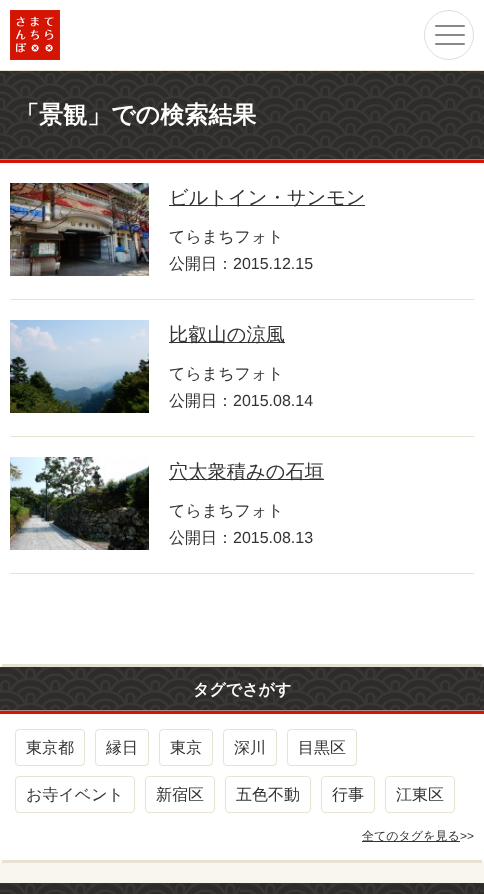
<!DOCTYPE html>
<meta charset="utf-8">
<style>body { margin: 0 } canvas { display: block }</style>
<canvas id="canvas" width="484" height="894"></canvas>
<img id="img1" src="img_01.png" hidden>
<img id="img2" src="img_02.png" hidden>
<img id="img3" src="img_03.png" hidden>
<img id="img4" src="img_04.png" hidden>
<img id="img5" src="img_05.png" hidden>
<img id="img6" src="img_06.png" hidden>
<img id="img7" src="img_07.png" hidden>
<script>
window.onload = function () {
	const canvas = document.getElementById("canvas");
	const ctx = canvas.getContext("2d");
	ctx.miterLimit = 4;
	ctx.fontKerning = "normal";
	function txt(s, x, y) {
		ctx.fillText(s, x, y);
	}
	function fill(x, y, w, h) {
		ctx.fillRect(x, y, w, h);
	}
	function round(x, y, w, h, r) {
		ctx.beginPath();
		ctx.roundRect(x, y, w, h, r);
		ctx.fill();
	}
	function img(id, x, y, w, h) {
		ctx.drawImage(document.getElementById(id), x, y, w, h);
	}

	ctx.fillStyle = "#F9F6ED";
	fill(0, 0, 484, 894);
	ctx.fillStyle = "#FFFFFF";
	fill(0, 0, 484, 70);
	ctx.fillStyle = "#E7E2D2";
	fill(0, 70, 484, 1);
	img("img1", 10, 10, 50, 50);
	ctx.beginPath();
	ctx.arc(449, 35, 24.5, 0, Math.PI * 2);
	ctx.strokeStyle = "#DDDDDD";
	ctx.stroke();
	ctx.fillStyle = "#888888";
	round(435, 25, 30, 2, 1);
	round(435, 34, 30, 2, 1);
	round(435, 43, 30, 2, 1);
	ctx.fillStyle = "#D41503";
	fill(0, 160, 484, 3);
	img("img2", 0, 71, 484, 88);
	ctx.fillStyle = "#A68B8B";
	fill(0, 159, 484, 1);
	ctx.fillStyle = "#FFFFFF";
	ctx.beginPath();
	ctx.roundRect(0, 163, 484, 504, [0, 0, 4, 4]);
	ctx.fill();
	ctx.fillStyle = "#E7E2D2";
	fill(2, 664, 480, 3);
	fill(10, 299, 464, 1);
	img("img3", 10, 183, 139, 93);
	ctx.fillStyle = "#333333";
	fill(169, 205, 196, 1);
	ctx.fillStyle = "#E7E2D2";
	fill(10, 436, 464, 1);
	img("img4", 10, 320, 139, 93);
	ctx.fillStyle = "#333333";
	fill(169, 342, 116, 1);
	ctx.fillStyle = "#E7E2D2";
	fill(10, 573, 464, 1);
	img("img5", 10, 457, 139, 93);
	ctx.fillStyle = "#333333";
	fill(169, 479, 155, 1);
	img("img6", 0, 667, 484, 47);
	ctx.fillStyle = "#FFFFFF";
	ctx.beginPath();
	ctx.roundRect(0, 714, 484, 149, [0, 0, 4, 4]);
	ctx.fill();
	ctx.fillStyle = "#E7E2D2";
	fill(2, 860, 480, 3);
	ctx.beginPath();
	ctx.roundRect(15.5, 729.5, 69, 36, 3.5);
	ctx.strokeStyle = "#E7E2D2";
	ctx.stroke();
	ctx.beginPath();
	ctx.roundRect(95.5, 729.5, 53, 36, 3.5);
	ctx.stroke();
	ctx.beginPath();
	ctx.roundRect(159.5, 729.5, 53, 36, 3.5);
	ctx.stroke();
	ctx.beginPath();
	ctx.roundRect(223.5, 729.5, 53, 36, 3.5);
	ctx.stroke();
	ctx.beginPath();
	ctx.roundRect(287.5, 729.5, 69, 36, 3.5);
	ctx.stroke();
	ctx.beginPath();
	ctx.roundRect(15.5, 776.5, 119, 36, 3.5);
	ctx.stroke();
	ctx.beginPath();
	ctx.roundRect(145.5, 776.5, 69, 36, 3.5);
	ctx.stroke();
	ctx.beginPath();
	ctx.roundRect(225.5, 776.5, 85, 36, 3.5);
	ctx.stroke();
	ctx.beginPath();
	ctx.roundRect(321.5, 776.5, 53, 36, 3.5);
	ctx.stroke();
	ctx.beginPath();
	ctx.roundRect(385.5, 776.5, 69, 36, 3.5);
	ctx.stroke();
	ctx.fillStyle = "#333333";
	fill(362, 841, 98, 1);
	img("img7", 0, 883, 484, 11);
	ctx.font = "bold 24px WenQuanYi Zen Hei";
	ctx.fillStyle = "#FFFFFF";
	txt("「景観」での検索結果", 15, 123);
	ctx.font = "500 19.25px WenQuanYi Zen Hei";
	ctx.fillStyle = "#333333";
	txt("ビルトイン・サンモン", 169, 204);
	ctx.font = "500 16px WenQuanYi Zen Hei";
	txt("てらまちフォト", 169, 242);
	txt("公開日：", 169, 269);
	ctx.font = "16px Liberation Sans";
	txt("2015.12.15", 233, 269);
	ctx.font = "500 19.25px WenQuanYi Zen Hei";
	txt("比叡山の涼風", 169, 341);
	ctx.font = "500 16px WenQuanYi Zen Hei";
	txt("てらまちフォト", 169, 379);
	txt("公開日：", 169, 406);
	ctx.font = "16px Liberation Sans";
	txt("2015.08.14", 233, 406);
	ctx.font = "500 19.25px WenQuanYi Zen Hei";
	txt("穴太衆積みの石垣", 169, 478);
	ctx.font = "500 16px WenQuanYi Zen Hei";
	txt("てらまちフォト", 169, 516);
	txt("公開日：", 169, 543);
	ctx.font = "16px Liberation Sans";
	txt("2015.08.13", 233, 543);
	ctx.font = "bold 16px WenQuanYi Zen Hei";
	ctx.fillStyle = "#FFFFFF";
	txt("タグでさがす", 193, 695);
	ctx.font = "500 16px WenQuanYi Zen Hei";
	ctx.fillStyle = "#333333";
	txt("東京都", 26, 753);
	txt("縁日", 106, 753);
	txt("東京", 170, 753);
	txt("深川", 234, 753);
	txt("目黒区", 298, 753);
	txt("お寺イベント", 26, 800);
	txt("新宿区", 156, 800);
	txt("五色不動", 236, 800);
	txt("行事", 332, 800);
	txt("江東区", 396, 800);
	ctx.font = "500 12px WenQuanYi Zen Hei";
	txt("全てのタグを見る", 362, 840);
	ctx.font = "12px Liberation Sans";
	txt(">>", 460, 840);
};
</script>
